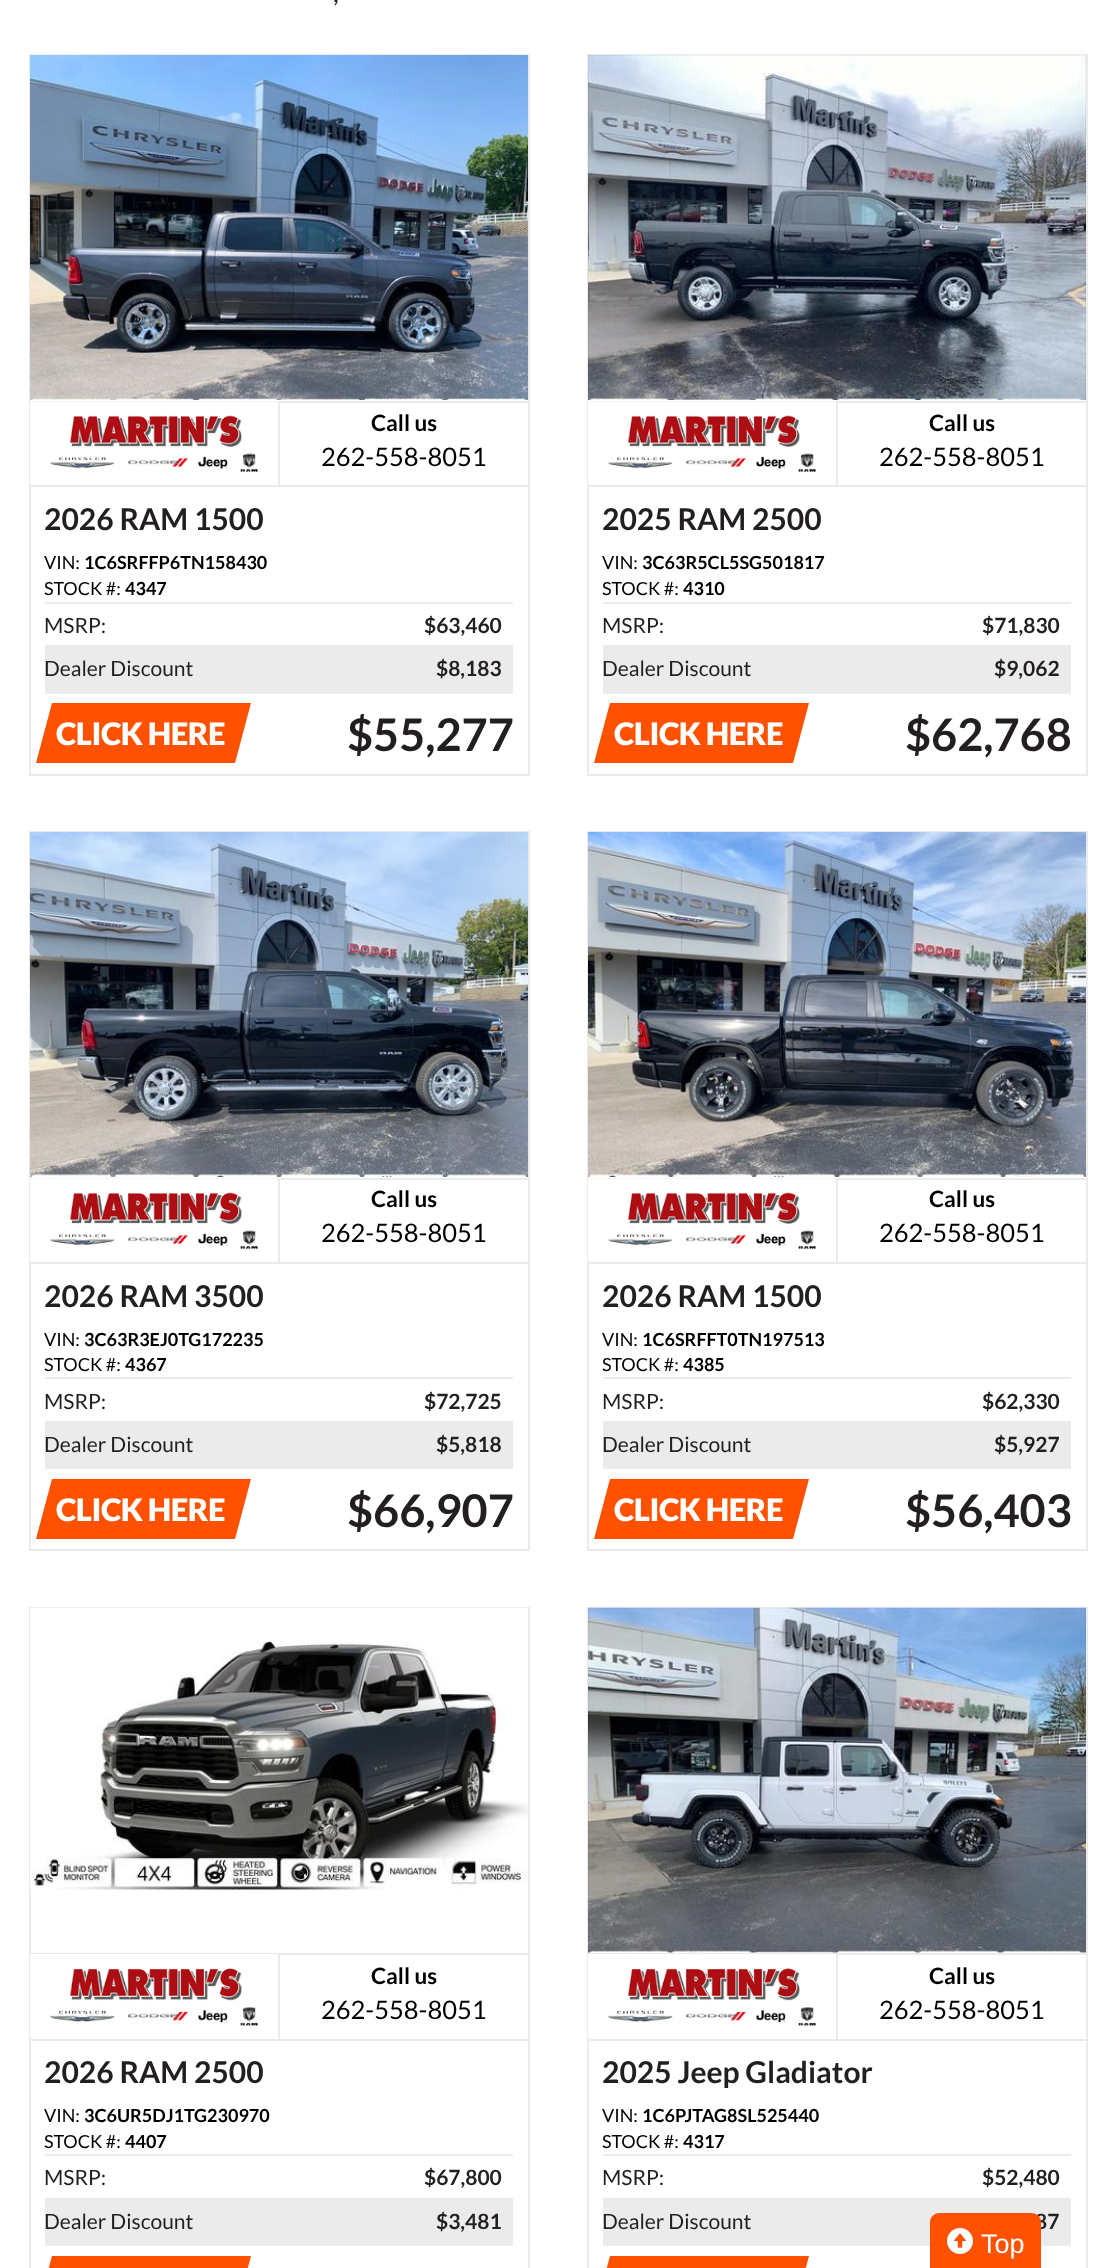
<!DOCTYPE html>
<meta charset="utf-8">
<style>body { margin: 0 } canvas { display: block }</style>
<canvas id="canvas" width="1115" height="2268"></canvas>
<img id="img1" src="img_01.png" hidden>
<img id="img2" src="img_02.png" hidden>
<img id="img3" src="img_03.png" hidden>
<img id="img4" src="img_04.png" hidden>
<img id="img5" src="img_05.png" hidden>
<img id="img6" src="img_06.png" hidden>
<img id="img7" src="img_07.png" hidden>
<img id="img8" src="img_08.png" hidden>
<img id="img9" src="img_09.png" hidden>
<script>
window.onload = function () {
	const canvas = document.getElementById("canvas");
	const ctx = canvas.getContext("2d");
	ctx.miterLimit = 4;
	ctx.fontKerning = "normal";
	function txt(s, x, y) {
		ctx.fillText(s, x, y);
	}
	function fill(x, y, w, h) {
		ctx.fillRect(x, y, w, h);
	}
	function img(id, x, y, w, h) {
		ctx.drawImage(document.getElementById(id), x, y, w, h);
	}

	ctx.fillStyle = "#FFFFFF";
	fill(0, 0, 1115, 2268);
	ctx.strokeStyle = "#EBEBEB";
	ctx.lineWidth = 2;
	ctx.strokeRect(30, 55, 499, 720);
	img("img1", 30, 55, 498, 345);
	ctx.fillStyle = "#EBEBEB";
	fill(30, 401, 249, 2);
	fill(278, 401, 2, 85);
	fill(30, 485, 498, 2);
	img("img2", 30, 401, 248, 83);
	fill(279, 401, 249, 2);
	fill(45, 602, 468, 2);
	fill(45, 645, 468, 49);
	ctx.fillStyle = "#FF5100";
	ctx.beginPath();
	ctx.moveTo(52, 703);
	ctx.lineTo(251, 703);
	ctx.lineTo(235, 763);
	ctx.lineTo(36, 763);
	ctx.closePath();
	ctx.fill();
	ctx.strokeRect(588, 55, 499, 720);
	img("img3", 588, 55, 498, 345);
	ctx.fillStyle = "#EBEBEB";
	fill(588, 401, 249, 2);
	fill(836, 401, 2, 85);
	fill(588, 485, 498, 2);
	img("img2", 588, 401, 248, 83);
	fill(837, 401, 249, 2);
	fill(603, 602, 468, 2);
	fill(603, 645, 468, 49);
	ctx.fillStyle = "#FF5100";
	ctx.beginPath();
	ctx.moveTo(610, 703);
	ctx.lineTo(809, 703);
	ctx.lineTo(793, 763);
	ctx.lineTo(594, 763);
	ctx.closePath();
	ctx.fill();
	ctx.strokeRect(30, 832, 499, 718);
	img("img4", 30, 832, 498, 345);
	ctx.fillStyle = "#EBEBEB";
	fill(30, 1178, 249, 2);
	fill(278, 1178, 2, 85);
	fill(30, 1262, 498, 2);
	img("img2", 30, 1178, 248, 83);
	fill(279, 1178, 249, 2);
	fill(45, 1377, 468, 2);
	fill(45, 1421, 468, 48);
	ctx.fillStyle = "#FF5100";
	ctx.beginPath();
	ctx.moveTo(52, 1479);
	ctx.lineTo(251, 1479);
	ctx.lineTo(235, 1539);
	ctx.lineTo(36, 1539);
	ctx.closePath();
	ctx.fill();
	ctx.strokeRect(588, 832, 499, 718);
	img("img5", 588, 832, 498, 345);
	ctx.fillStyle = "#EBEBEB";
	fill(588, 1178, 249, 2);
	fill(836, 1178, 2, 85);
	fill(588, 1262, 498, 2);
	img("img2", 588, 1178, 248, 83);
	fill(837, 1178, 249, 2);
	fill(603, 1377, 468, 2);
	fill(603, 1421, 468, 48);
	ctx.fillStyle = "#FF5100";
	ctx.beginPath();
	ctx.moveTo(610, 1479);
	ctx.lineTo(809, 1479);
	ctx.lineTo(793, 1539);
	ctx.lineTo(594, 1539);
	ctx.closePath();
	ctx.fill();
	ctx.strokeRect(30, 1608, 499, 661);
	img("img6", 30, 1607, 498, 283);
	ctx.fillStyle = "#EBEBEB";
	fill(30, 1953, 249, 2);
	fill(278, 1953, 2, 87);
	fill(30, 2039, 498, 2);
	img("img7", 30, 1954, 248, 84);
	fill(279, 1953, 249, 2);
	fill(45, 2154, 468, 2);
	fill(45, 2198, 468, 48);
	ctx.fillStyle = "#FF5100";
	ctx.beginPath();
	ctx.moveTo(52, 2256);
	ctx.lineTo(251, 2256);
	ctx.lineTo(235, 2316);
	ctx.lineTo(36, 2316);
	ctx.closePath();
	ctx.fill();
	ctx.strokeRect(588, 1608, 499, 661);
	img("img8", 588, 1607, 498, 346);
	ctx.fillStyle = "#EBEBEB";
	fill(588, 1953, 249, 2);
	fill(836, 1953, 2, 87);
	fill(588, 2039, 498, 2);
	img("img7", 588, 1954, 248, 84);
	fill(837, 1953, 249, 2);
	fill(603, 2154, 468, 2);
	fill(603, 2198, 468, 48);
	ctx.fillStyle = "#FF5100";
	ctx.beginPath();
	ctx.moveTo(610, 2256);
	ctx.lineTo(809, 2256);
	ctx.lineTo(793, 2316);
	ctx.lineTo(594, 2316);
	ctx.closePath();
	ctx.fill();
	ctx.font = "27px Lato";
	ctx.fillStyle = "#231F20";
	txt(",", 333, 2);
	ctx.font = "bold 22.5px Lato";
	ctx.fillStyle = "#000000";
	txt("Call us", 371, 431);
	ctx.font = "25.5px Lato";
	txt("262-558-8051", 321, 466);
	ctx.font = "bold 30px Lato";
	ctx.fillStyle = "#231F20";
	txt("2026 RAM 1500", 44, 530);
	ctx.font = "18px Lato";
	ctx.fillStyle = "#000000";
	txt("VIN:", 44, 569);
	ctx.font = "bold 18px Lato";
	txt("1C6SRFFP6TN158430", 84, 569);
	ctx.font = "18px Lato";
	txt("STOCK #:", 44, 595);
	ctx.font = "bold 18px Lato";
	txt("4347", 125, 595);
	ctx.font = "21px Lato";
	ctx.fillStyle = "#231F20";
	txt("MSRP:", 44, 633);
	ctx.font = "bold 21px Lato";
	txt("$63,460", 424, 633);
	ctx.font = "21px Lato";
	txt("Dealer Discount", 44, 676);
	ctx.font = "bold 21px Lato";
	txt("$8,183", 436, 676);
	ctx.letterSpacing = "-0.5px";
	ctx.font = "900 31px Lato";
	ctx.fillStyle = "#FFFFFF";
	txt("CLICK HERE", 56, 745);
	ctx.letterSpacing = "0px";
	ctx.font = "bold 45px Lato";
	ctx.fillStyle = "#231F20";
	txt("$55,277", 347, 751);
	ctx.font = "bold 22.5px Lato";
	ctx.fillStyle = "#000000";
	txt("Call us", 929, 431);
	ctx.font = "25.5px Lato";
	txt("262-558-8051", 879, 466);
	ctx.font = "bold 30px Lato";
	ctx.fillStyle = "#231F20";
	txt("2025 RAM 2500", 602, 530);
	ctx.font = "18px Lato";
	ctx.fillStyle = "#000000";
	txt("VIN:", 602, 569);
	ctx.font = "bold 18px Lato";
	txt("3C63R5CL5SG501817", 642, 569);
	ctx.font = "18px Lato";
	txt("STOCK #:", 602, 595);
	ctx.font = "bold 18px Lato";
	txt("4310", 683, 595);
	ctx.font = "21px Lato";
	ctx.fillStyle = "#231F20";
	txt("MSRP:", 602, 633);
	ctx.font = "bold 21px Lato";
	txt("$71,830", 982, 633);
	ctx.font = "21px Lato";
	txt("Dealer Discount", 602, 676);
	ctx.font = "bold 21px Lato";
	txt("$9,062", 994, 676);
	ctx.letterSpacing = "-0.5px";
	ctx.font = "900 31px Lato";
	ctx.fillStyle = "#FFFFFF";
	txt("CLICK HERE", 614, 745);
	ctx.letterSpacing = "0px";
	ctx.font = "bold 45px Lato";
	ctx.fillStyle = "#231F20";
	txt("$62,768", 905, 751);
	ctx.font = "bold 22.5px Lato";
	ctx.fillStyle = "#000000";
	txt("Call us", 371, 1207);
	ctx.font = "25.5px Lato";
	txt("262-558-8051", 321, 1242);
	ctx.font = "bold 30px Lato";
	ctx.fillStyle = "#231F20";
	txt("2026 RAM 3500", 44, 1307);
	ctx.font = "18px Lato";
	ctx.fillStyle = "#000000";
	txt("VIN:", 44, 1346);
	ctx.font = "bold 18px Lato";
	txt("3C63R3EJ0TG172235", 84, 1346);
	ctx.font = "18px Lato";
	txt("STOCK #:", 44, 1371);
	ctx.font = "bold 18px Lato";
	txt("4367", 125, 1371);
	ctx.font = "21px Lato";
	ctx.fillStyle = "#231F20";
	txt("MSRP:", 44, 1409);
	ctx.font = "bold 21px Lato";
	txt("$72,725", 424, 1409);
	ctx.font = "21px Lato";
	txt("Dealer Discount", 44, 1452);
	ctx.font = "bold 21px Lato";
	txt("$5,818", 436, 1452);
	ctx.letterSpacing = "-0.5px";
	ctx.font = "900 31px Lato";
	ctx.fillStyle = "#FFFFFF";
	txt("CLICK HERE", 56, 1521);
	ctx.letterSpacing = "0px";
	ctx.font = "bold 45px Lato";
	ctx.fillStyle = "#231F20";
	txt("$66,907", 347, 1527);
	ctx.font = "bold 22.5px Lato";
	ctx.fillStyle = "#000000";
	txt("Call us", 929, 1207);
	ctx.font = "25.5px Lato";
	txt("262-558-8051", 879, 1242);
	ctx.font = "bold 30px Lato";
	ctx.fillStyle = "#231F20";
	txt("2026 RAM 1500", 602, 1307);
	ctx.font = "18px Lato";
	ctx.fillStyle = "#000000";
	txt("VIN:", 602, 1346);
	ctx.font = "bold 18px Lato";
	txt("1C6SRFFT0TN197513", 642, 1346);
	ctx.font = "18px Lato";
	txt("STOCK #:", 602, 1371);
	ctx.font = "bold 18px Lato";
	txt("4385", 683, 1371);
	ctx.font = "21px Lato";
	ctx.fillStyle = "#231F20";
	txt("MSRP:", 602, 1409);
	ctx.font = "bold 21px Lato";
	txt("$62,330", 982, 1409);
	ctx.font = "21px Lato";
	txt("Dealer Discount", 602, 1452);
	ctx.font = "bold 21px Lato";
	txt("$5,927", 994, 1452);
	ctx.letterSpacing = "-0.5px";
	ctx.font = "900 31px Lato";
	ctx.fillStyle = "#FFFFFF";
	txt("CLICK HERE", 614, 1521);
	ctx.letterSpacing = "0px";
	ctx.font = "bold 45px Lato";
	ctx.fillStyle = "#231F20";
	txt("$56,403", 905, 1527);
	ctx.font = "bold 22.5px Lato";
	ctx.fillStyle = "#000000";
	txt("Call us", 371, 1984);
	ctx.font = "25.5px Lato";
	txt("262-558-8051", 321, 2019);
	ctx.font = "bold 30px Lato";
	ctx.fillStyle = "#231F20";
	txt("2026 RAM 2500", 44, 2083);
	ctx.font = "18px Lato";
	ctx.fillStyle = "#000000";
	txt("VIN:", 44, 2122);
	ctx.font = "bold 18px Lato";
	txt("3C6UR5DJ1TG230970", 84, 2122);
	ctx.font = "18px Lato";
	txt("STOCK #:", 44, 2148);
	ctx.font = "bold 18px Lato";
	txt("4407", 125, 2148);
	ctx.font = "21px Lato";
	ctx.fillStyle = "#231F20";
	txt("MSRP:", 44, 2185);
	ctx.font = "bold 21px Lato";
	txt("$67,800", 424, 2185);
	ctx.font = "21px Lato";
	txt("Dealer Discount", 44, 2229);
	ctx.font = "bold 21px Lato";
	txt("$3,481", 436, 2229);
	ctx.font = "bold 22.5px Lato";
	ctx.fillStyle = "#000000";
	txt("Call us", 929, 1984);
	ctx.font = "25.5px Lato";
	txt("262-558-8051", 879, 2019);
	ctx.font = "bold 30px Lato";
	ctx.fillStyle = "#231F20";
	txt("2025 Jeep Gladiator", 602, 2083);
	ctx.font = "18px Lato";
	ctx.fillStyle = "#000000";
	txt("VIN:", 602, 2122);
	ctx.font = "bold 18px Lato";
	txt("1C6PJTAG8SL525440", 642, 2122);
	ctx.font = "18px Lato";
	txt("STOCK #:", 602, 2148);
	ctx.font = "bold 18px Lato";
	txt("4317", 683, 2148);
	ctx.font = "21px Lato";
	ctx.fillStyle = "#231F20";
	txt("MSRP:", 602, 2185);
	ctx.font = "bold 21px Lato";
	txt("$52,480", 982, 2185);
	ctx.font = "21px Lato";
	txt("Dealer Discount", 602, 2229);
	ctx.font = "bold 21px Lato";
	txt("87", 1035, 2229);
	ctx.fillStyle = "#FF5100";
	ctx.beginPath();
	ctx.roundRect(931, 2214, 109, 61, 8);
	ctx.fill();
	ctx.strokeStyle = "#FF5100";
	ctx.stroke();
	img("img9", 947, 2228, 26, 26);
	ctx.font = "27px Liberation Sans";
	ctx.fillStyle = "#FFFFFF";
	txt("Top", 981, 2253);
};
</script>
